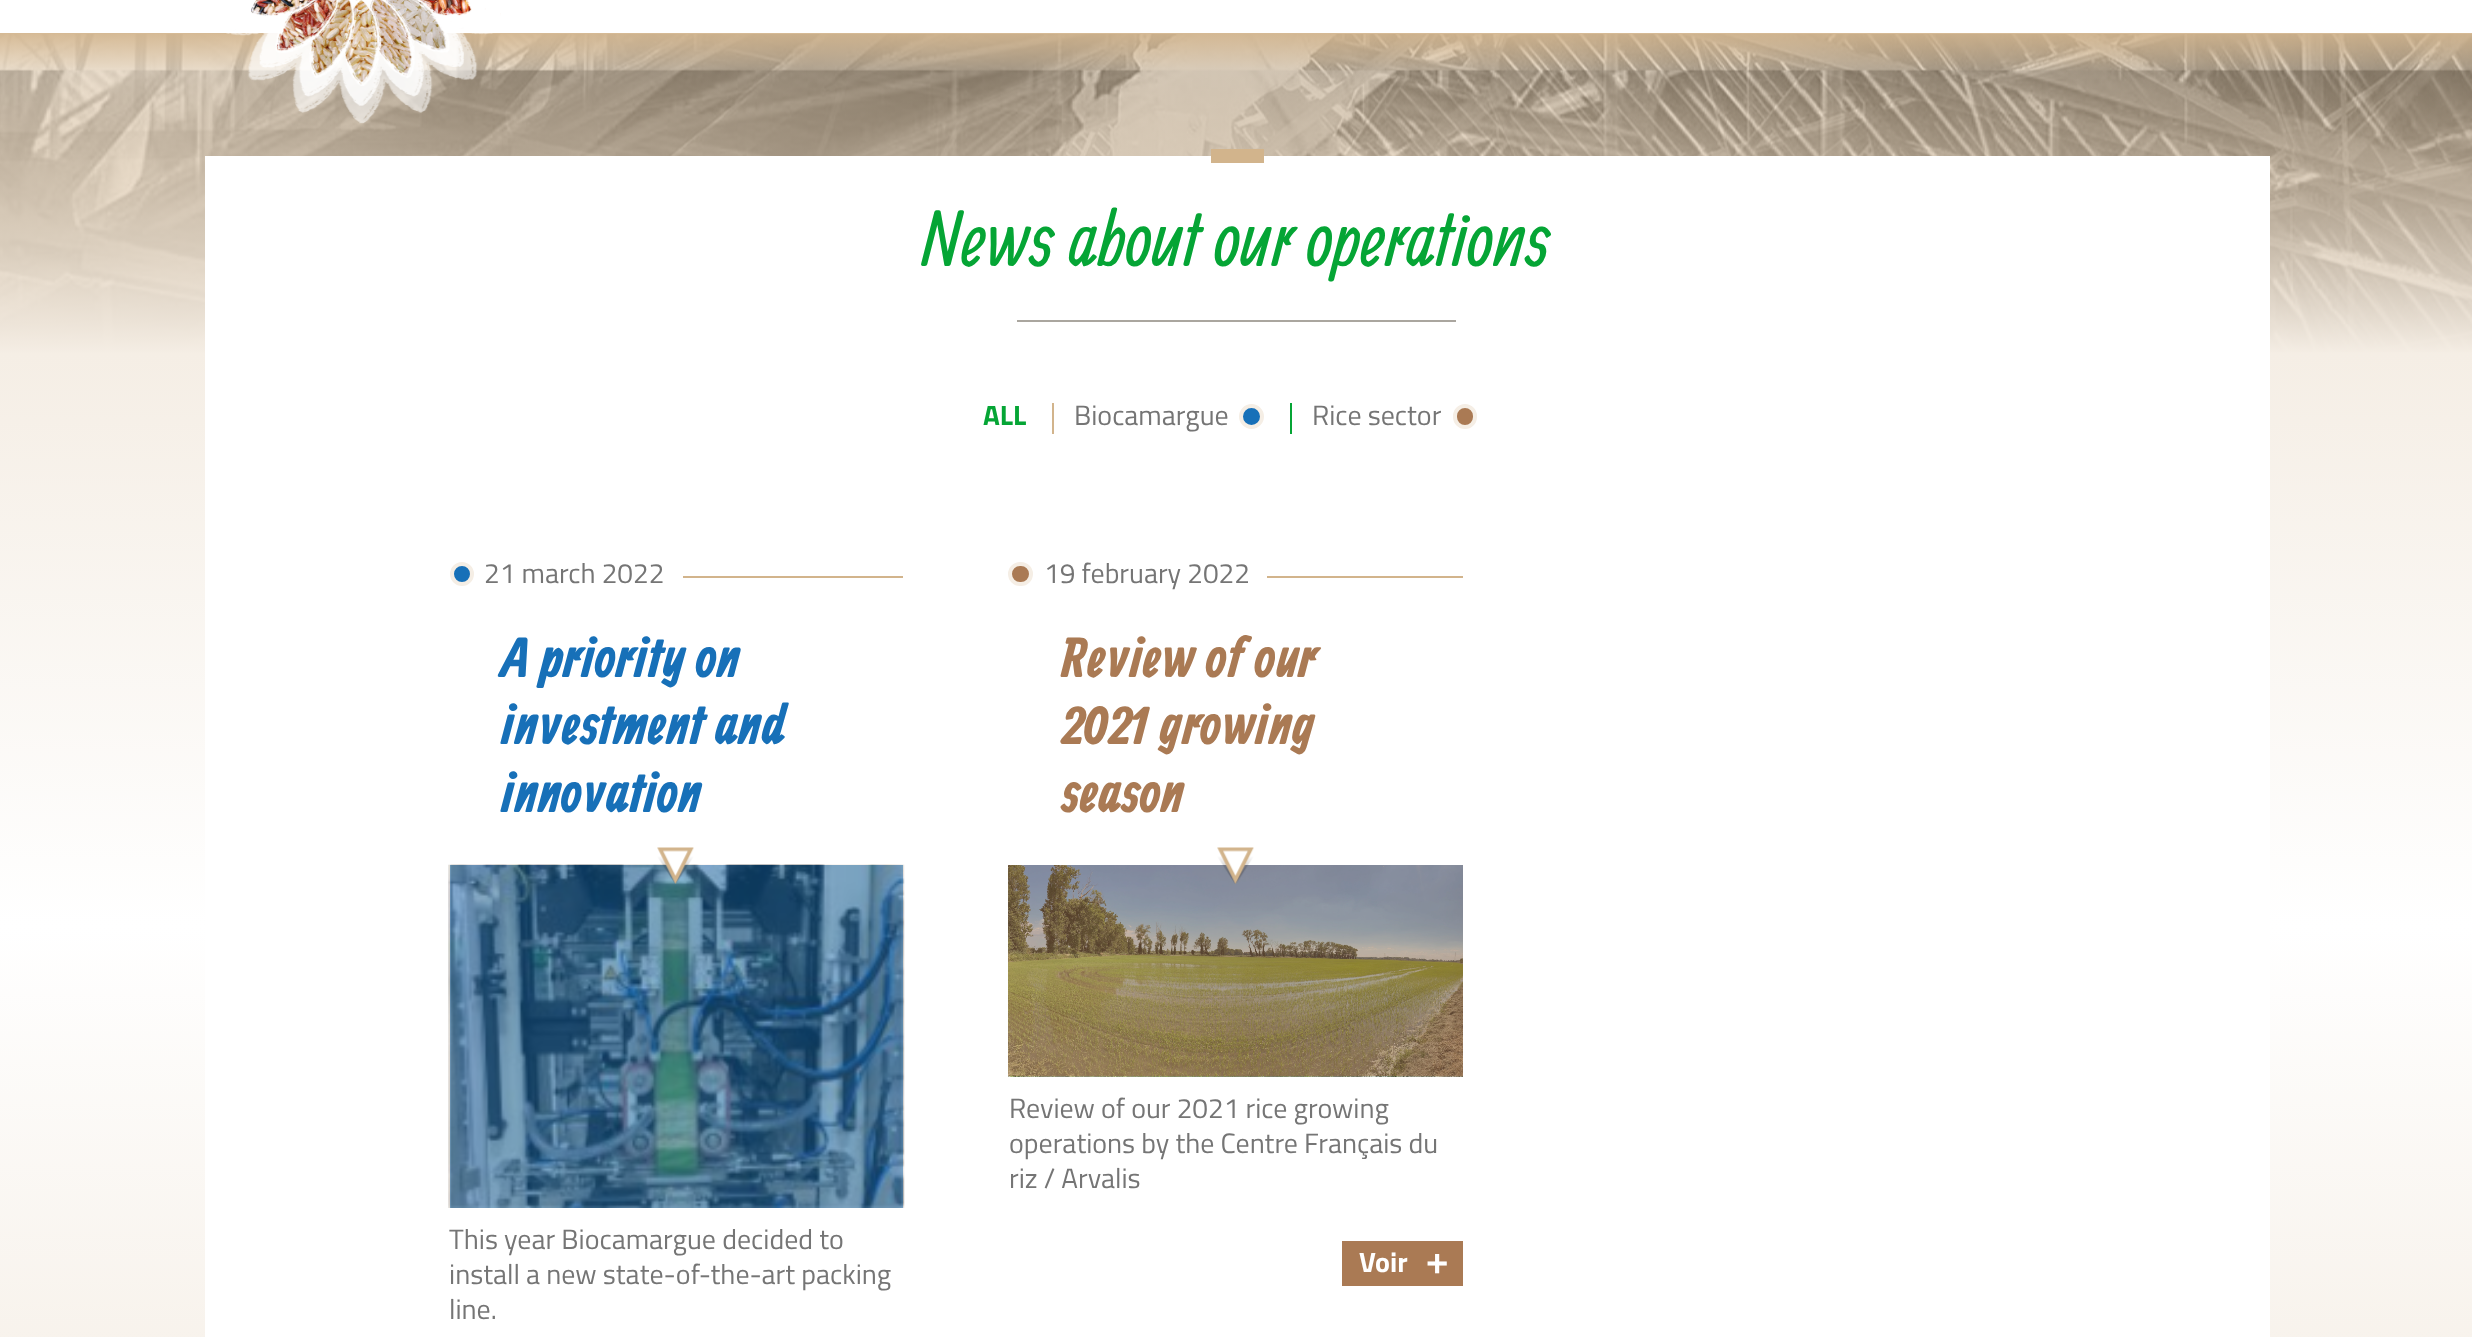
<!DOCTYPE html>
<meta charset="utf-8">
<style>body { margin: 0 } canvas { display: block }</style>
<canvas id="canvas" width="2472" height="1337"></canvas>
<img id="img1" src="img_04.png" hidden>
<img id="img2" src="img_05.png" hidden>
<img id="img3" src="img_02.png" hidden>
<img id="img4" src="img_03.png" hidden>
<img id="img5" src="img_01.png" hidden>
<img id="img6" src="img_07.png" hidden>
<img id="img7" src="img_06.png" hidden>
<img id="img8" src="img_09.png" hidden>
<img id="img9" src="img_08.png" hidden>
<script>
window.onload = function () {
	const canvas = document.getElementById("canvas");
	const ctx = canvas.getContext("2d");
	ctx.miterLimit = 4;
	ctx.fontKerning = "normal";
	function txt(s, x, y) {
		ctx.fillText(s, x, y);
	}
	function fill(x, y, w, h) {
		ctx.fillRect(x, y, w, h);
	}
	function img(id, x, y, w, h) {
		ctx.drawImage(document.getElementById(id), x, y, w, h);
	}
	let gradient;

	ctx.fillStyle = "#F5EEE5";
	fill(0, 0, 2472, 1337);
	ctx.fillStyle = "#FFFFFF";
	fill(0, 0, 2472, 33);
	img("img1", 0, 34, 2472, 318);
	img("img2", 0, 69, 2472, 283);
	gradient = ctx.createLinearGradient(1236, 33, 1236, 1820);
	gradient.addColorStop(0, "rgba(210, 180, 140, 0.9)");
	gradient.addColorStop(0.02, "rgba(210, 180, 140, 0.4)");
	gradient.addColorStop(0.18, "#F5EEE5");
	gradient.addColorStop(0.5, "#FFFFFF");
	gradient.addColorStop(0.82, "#F5EEE5");
	gradient.addColorStop(0.98, "rgba(210, 180, 140, 0.4)");
	gradient.addColorStop(1, "rgba(210, 180, 140, 0.9)");
	ctx.fillStyle = gradient;
	fill(0, 33, 2472, 1304);
	img("img3", 259, 8, 227, 98);
	img("img4", 226, 13, 275, 111);
	img("img5", 251, 0, 221, 86);
	ctx.fillStyle = "#FFFFFF";
	fill(205, 156, 2065, 1181);
	ctx.fillStyle = "#D2B48C";
	fill(1211, 149, 53, 14);
	ctx.fillStyle = "#AAA69F";
	fill(1017, 320, 439, 2);
	ctx.fillStyle = "#D2B48C";
	fill(1052, 403, 2, 31);
	ctx.fillStyle = "#1770B8";
	ctx.beginPath();
	ctx.arc(1251.5, 416.5, 10.5, 0, Math.PI * 2);
	ctx.fill();
	ctx.strokeStyle = "#F5EEE5";
	ctx.lineWidth = 4;
	ctx.stroke();
	ctx.fillStyle = "#05A535";
	fill(1290, 403, 2, 31);
	ctx.fillStyle = "#AA7A54";
	ctx.beginPath();
	ctx.roundRect(1455, 406, 20, 21, 10);
	ctx.fill();
	ctx.stroke();
	ctx.fillStyle = "#1770B8";
	ctx.beginPath();
	ctx.arc(462, 574, 10, 0, Math.PI * 2);
	ctx.fill();
	ctx.stroke();
	ctx.fillStyle = "#D2B48C";
	fill(683, 576, 220, 2);
	img("img6", 448, 864, 457, 344);
	ctx.fillStyle = "rgba(23, 112, 184, 0.5)";
	fill(450, 865, 453, 343);
	img("img7", 657, 847, 37, 37);
	ctx.fillStyle = "#AA7A54";
	ctx.beginPath();
	ctx.roundRect(1010, 564, 21, 20, 10);
	ctx.fill();
	ctx.stroke();
	ctx.fillStyle = "#D2B48C";
	fill(1267, 576, 196, 2);
	img("img8", 1008, 865, 455, 212);
	img("img9", 1217, 847, 37, 37);
	ctx.fillStyle = "#AA7A54";
	fill(1342, 1241, 121, 45);
	ctx.font = "77px Allan";
	ctx.fillStyle = "#05A535";
	txt("News about our operations", 922, 266);
	ctx.font = "bold 28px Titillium";
	txt("ALL", 983, 425);
	ctx.font = "28px Titillium";
	ctx.fillStyle = "#757575";
	txt("Biocamargue", 1074, 425);
	txt("Rice sector", 1312, 425);
	txt("21 march 2022", 484, 583);
	ctx.font = "bold 56px Allan";
	ctx.fillStyle = "#1770B8";
	txt("A priority on", 501, 677);
	txt("investment and", 501, 744);
	txt("innovation", 501, 812);
	ctx.font = "28px Titillium";
	ctx.fillStyle = "#757575";
	txt("This year Biocamargue decided to", 449, 1249);
	txt("install a new state-of-the-art packing", 449, 1284);
	txt("line.", 449, 1319);
	txt("19 february 2022", 1044, 583);
	ctx.font = "bold 56px Allan";
	ctx.fillStyle = "#AA7A54";
	txt("Review of our", 1061, 677);
	txt("2021 growing", 1061, 744);
	txt("season", 1061, 812);
	ctx.font = "28px Titillium";
	ctx.fillStyle = "#757575";
	txt("Review of our 2021 rice growing", 1009, 1118);
	txt("operations by the Centre Français du", 1009, 1153);
	txt("riz / Arvalis", 1009, 1188);
	ctx.font = "bold 28px Titillium";
	ctx.fillStyle = "#FFFFFF";
	txt("Voir", 1359, 1272);
	ctx.font = "italic 600 42px Titillium";
	txt("+", 1423, 1274);
};
</script>
